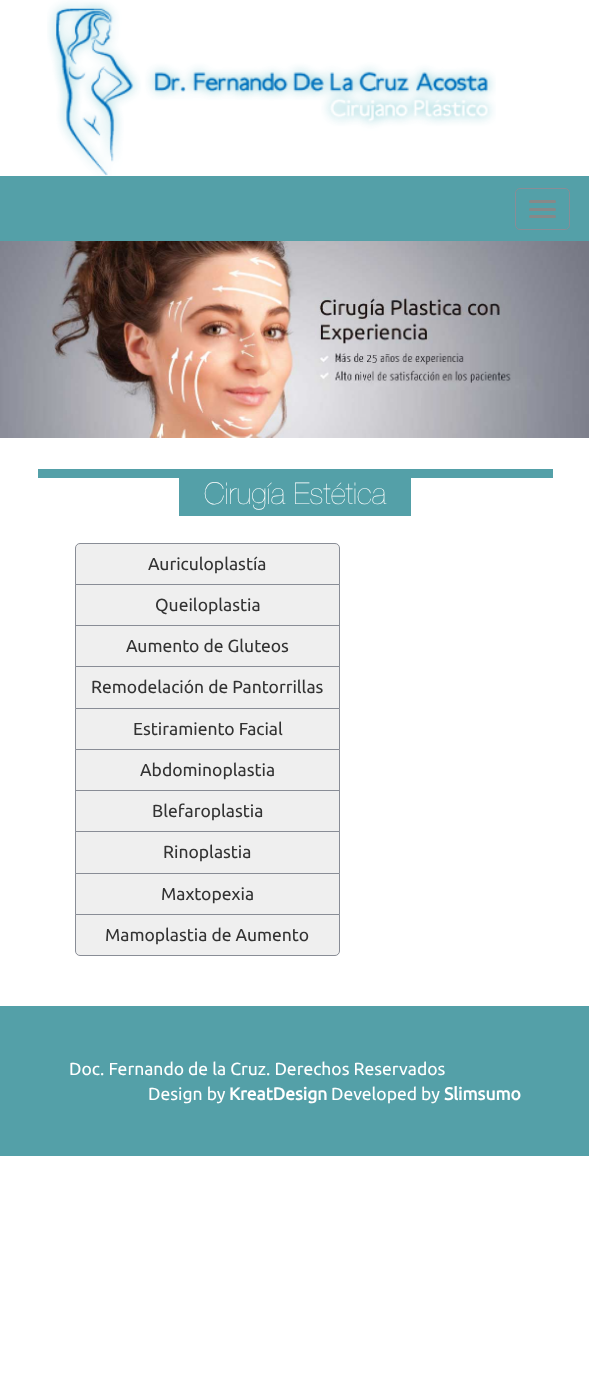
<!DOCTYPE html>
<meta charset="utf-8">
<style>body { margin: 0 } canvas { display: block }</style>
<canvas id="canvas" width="589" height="1377"></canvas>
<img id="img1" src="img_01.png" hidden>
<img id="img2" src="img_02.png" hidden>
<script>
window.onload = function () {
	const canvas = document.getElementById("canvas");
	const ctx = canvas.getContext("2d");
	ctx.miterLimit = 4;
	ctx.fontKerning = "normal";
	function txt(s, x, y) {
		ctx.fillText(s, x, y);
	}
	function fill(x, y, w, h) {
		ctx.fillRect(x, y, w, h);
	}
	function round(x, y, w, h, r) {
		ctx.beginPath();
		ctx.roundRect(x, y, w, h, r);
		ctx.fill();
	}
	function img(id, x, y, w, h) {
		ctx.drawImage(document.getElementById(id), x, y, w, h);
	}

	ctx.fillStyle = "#FFFFFF";
	fill(0, 0, 589, 1377);
	img("img1", 47, 0, 449, 176);
	ctx.fillStyle = "#54A0A8";
	fill(0, 176, 589, 65);
	ctx.beginPath();
	ctx.roundRect(515.5, 188.5, 54, 41, 4.5);
	ctx.strokeStyle = "#898D96";
	ctx.stroke();
	ctx.fillStyle = "#888888";
	round(529, 200, 27, 3, 1.5);
	round(529, 208, 27, 3, 1.5);
	round(529, 215, 27, 3, 1.5);
	img("img2", 0, 241, 589, 197);
	ctx.fillStyle = "#54A0A8";
	fill(38, 469, 515, 9);
	fill(179, 478, 232, 38);
	ctx.fillStyle = "#EFEFEF";
	ctx.beginPath();
	ctx.roundRect(75.5, 543.5, 264, 41, [4.5, 4.5, 0, 0]);
	ctx.fill();
	ctx.stroke();
	ctx.beginPath();
	ctx.rect(75.5, 584.5, 264, 41);
	ctx.fill();
	ctx.stroke();
	fill(76, 626, 263, 40);
	ctx.strokeRect(75.5, 625.5, 264, 42);
	ctx.beginPath();
	ctx.rect(75.5, 666.5, 264, 42);
	ctx.fill();
	ctx.stroke();
	ctx.beginPath();
	ctx.rect(75.5, 708.5, 264, 41);
	ctx.fill();
	ctx.stroke();
	ctx.beginPath();
	ctx.rect(75.5, 749.5, 264, 41);
	ctx.fill();
	ctx.stroke();
	fill(76, 791, 263, 40);
	ctx.strokeRect(75.5, 790.5, 264, 42);
	ctx.beginPath();
	ctx.rect(75.5, 831.5, 264, 42);
	ctx.fill();
	ctx.stroke();
	ctx.beginPath();
	ctx.rect(75.5, 873.5, 264, 41);
	ctx.fill();
	ctx.stroke();
	ctx.beginPath();
	ctx.roundRect(75.5, 914.5, 264, 41, [0, 0, 4.5, 4.5]);
	ctx.fill();
	ctx.stroke();
	ctx.fillStyle = "#54A0A8";
	fill(0, 1006, 589, 150);
	ctx.font = "30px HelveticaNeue";
	ctx.fillStyle = "#FFFFFF";
	txt("Cirugía Estética", 204, 504);
	ctx.font = "17.5px Ubuntu";
	ctx.fillStyle = "#333333";
	txt("Auriculoplastía", 148, 570);
	txt("Queiloplastia", 155, 611);
	txt("Aumento de Gluteos", 126, 652);
	txt("Remodelación de Pantorrillas", 91, 693);
	txt("Estiramiento Facial", 133, 735);
	txt("Abdominoplastia", 140, 776);
	txt("Blefaroplastia", 152, 817);
	txt("Rinoplastia", 163, 858);
	txt("Maxtopexia", 161, 900);
	txt("Mamoplastia de Aumento", 105, 941);
	ctx.fillStyle = "#FFFFFF";
	txt("Doc. Fernando de la Cruz. Derechos Reservados", 69, 1075);
	txt("Design by", 148, 1100);
	ctx.font = "bold 17.5px Ubuntu";
	txt("KreatDesign", 229, 1100);
	ctx.font = "17.5px Ubuntu";
	txt("Developed by", 331, 1100);
	ctx.font = "bold 17.5px Ubuntu";
	txt("Slimsumo", 444, 1100);
};
</script>
